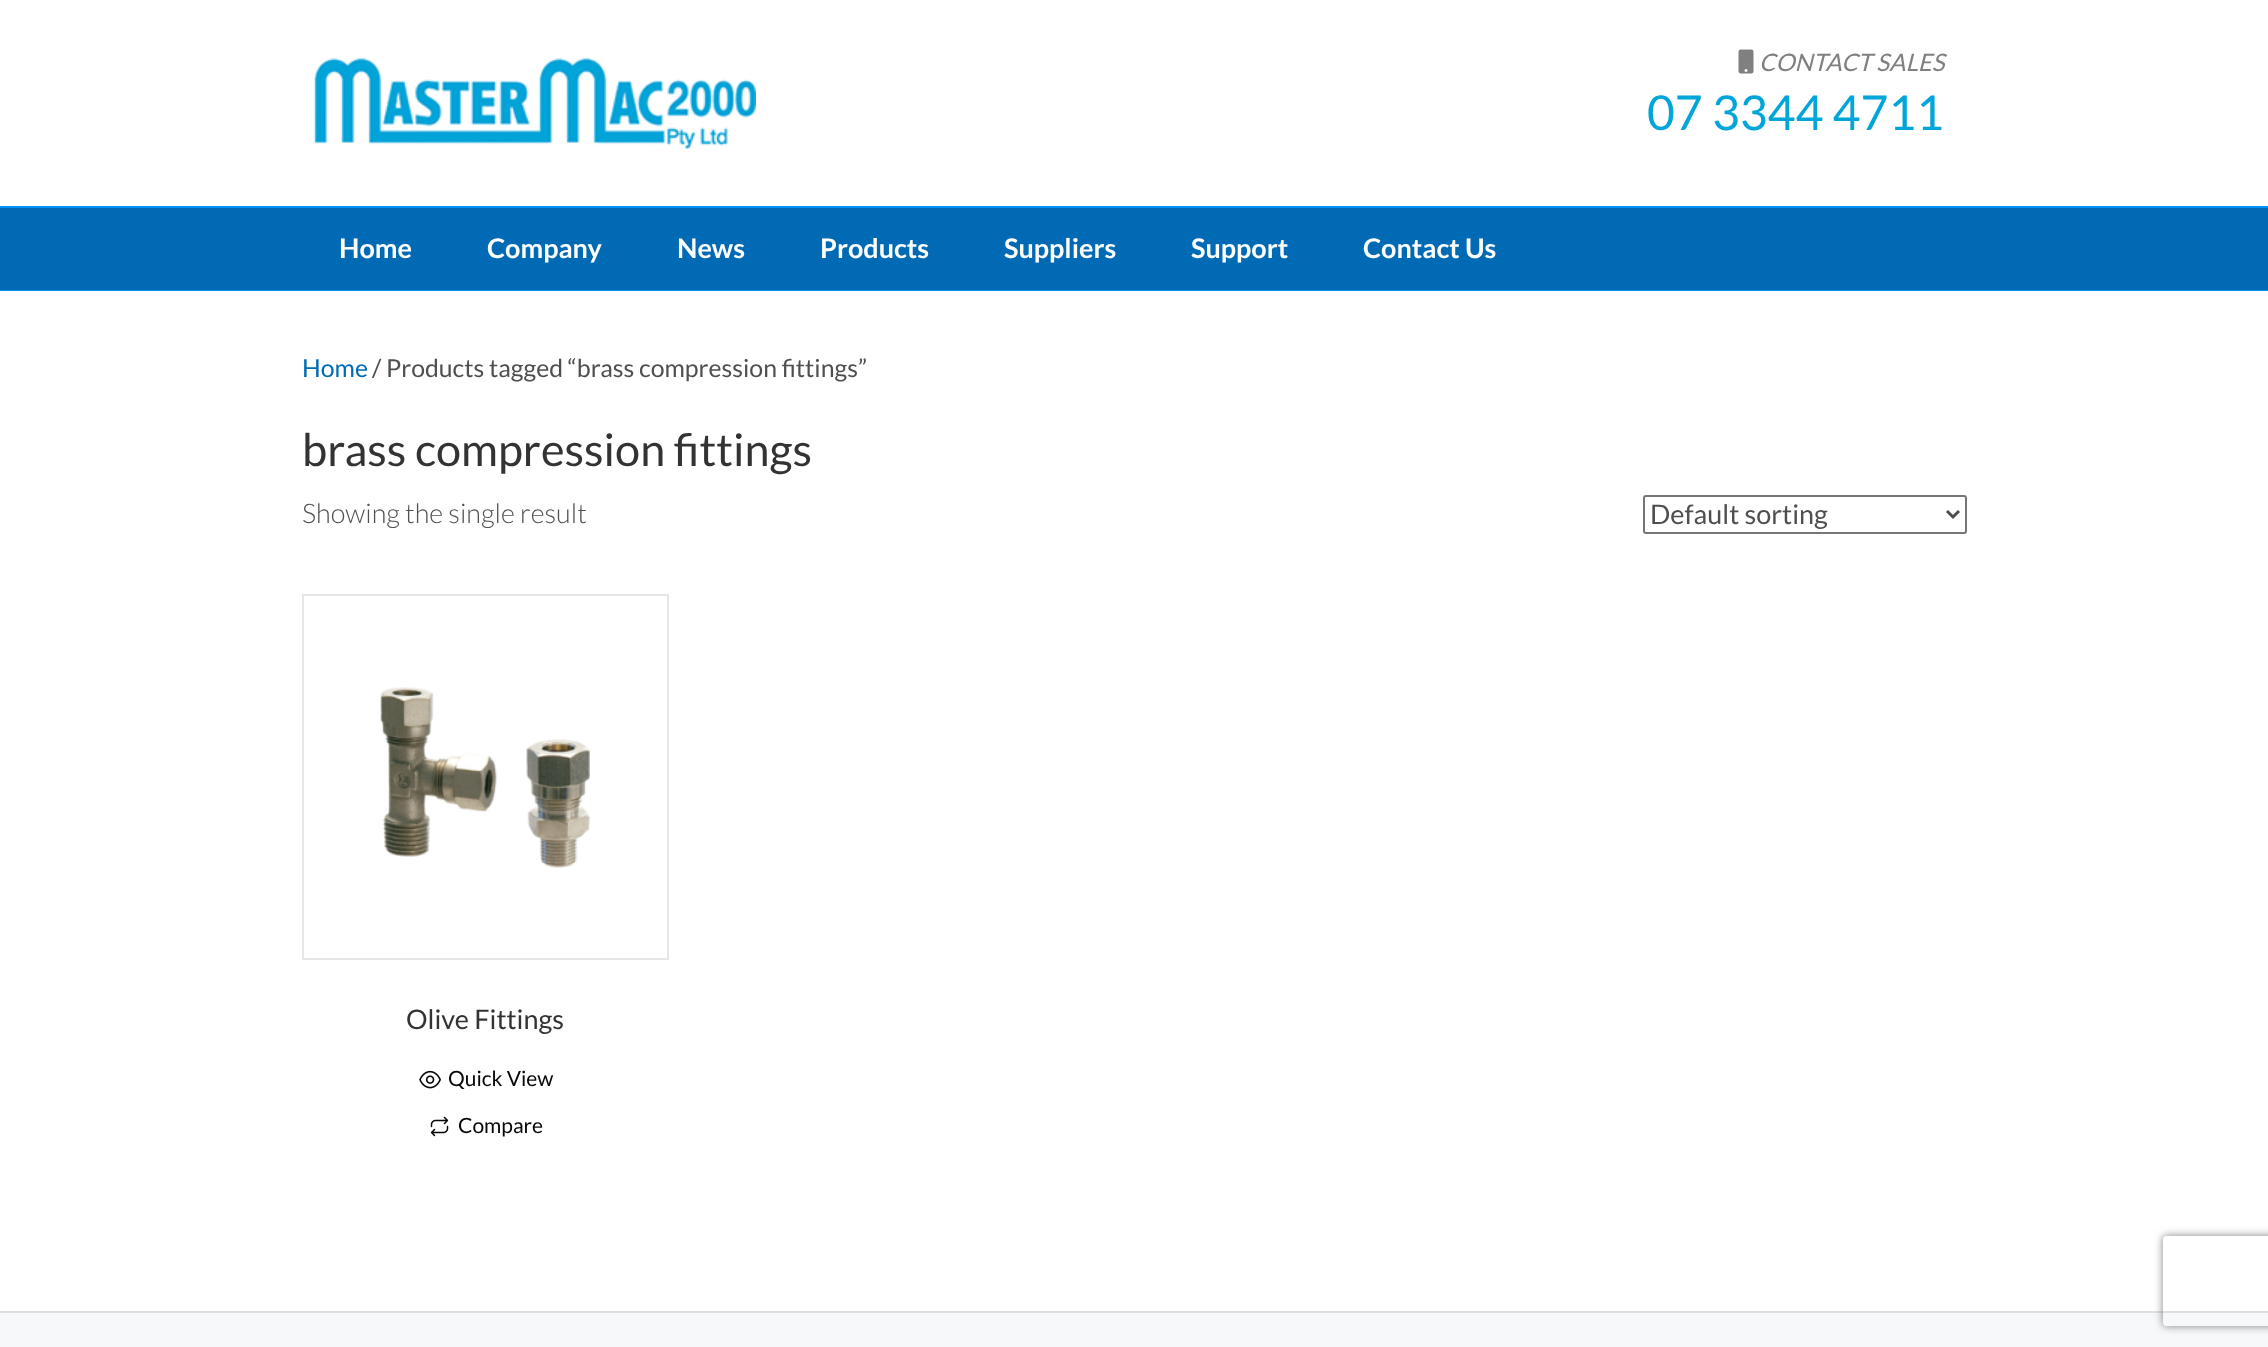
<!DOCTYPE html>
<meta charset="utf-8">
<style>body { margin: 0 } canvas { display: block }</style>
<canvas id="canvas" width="2268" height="1347"></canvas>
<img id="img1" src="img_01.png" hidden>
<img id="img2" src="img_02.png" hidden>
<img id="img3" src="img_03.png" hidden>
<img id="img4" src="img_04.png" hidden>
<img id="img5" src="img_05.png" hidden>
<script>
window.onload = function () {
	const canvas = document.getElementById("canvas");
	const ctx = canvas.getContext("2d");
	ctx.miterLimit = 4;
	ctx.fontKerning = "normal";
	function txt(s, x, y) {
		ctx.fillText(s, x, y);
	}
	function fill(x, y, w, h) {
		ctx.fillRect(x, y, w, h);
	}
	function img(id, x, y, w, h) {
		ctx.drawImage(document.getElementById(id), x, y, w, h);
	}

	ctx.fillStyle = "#FFFFFF";
	fill(0, 0, 2268, 1347);
	img("img1", 313, 58, 443, 91);
	img("img2", 1738, 49, 16, 25);
	ctx.fillStyle = "#006AB4";
	fill(0, 208, 2268, 82);
	ctx.fillStyle = "#0091F6";
	fill(0, 206, 2268, 2);
	fill(0, 290, 2268, 1);
	ctx.beginPath();
	ctx.roundRect(1644, 496, 322, 37, 2);
	ctx.strokeStyle = "#767676";
	ctx.lineWidth = 2;
	ctx.stroke();
	ctx.beginPath();
	ctx.moveTo(1947, 511);
	ctx.lineTo(1953, 517);
	ctx.lineTo(1959, 511);
	ctx.strokeStyle = "#4F4F4F";
	ctx.lineWidth = 3;
	ctx.stroke();
	ctx.strokeStyle = "#E6E6E6";
	ctx.lineWidth = 2;
	ctx.strokeRect(303, 595, 365, 364);
	img("img3", 380, 687, 210, 181);
	img("img4", 419, 1070, 22, 19);
	img("img5", 430, 1116, 19, 21);
	ctx.fillStyle = "#F7F8F9";
	fill(0, 1313, 2268, 34);
	ctx.fillStyle = "#DADFE3";
	fill(0, 1311, 2268, 2);
	ctx.save();
	ctx.beginPath();
	ctx.moveTo(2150, 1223);
	ctx.lineTo(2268, 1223);
	ctx.lineTo(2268, 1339);
	ctx.lineTo(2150, 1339);
	ctx.closePath();
	ctx.moveTo(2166, 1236);
	ctx.lineTo(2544, 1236);
	ctx.bezierCurveTo(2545.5, 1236, 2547, 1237.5, 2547, 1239);
	ctx.lineTo(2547, 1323);
	ctx.bezierCurveTo(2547, 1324.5, 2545.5, 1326, 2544, 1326);
	ctx.lineTo(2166, 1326);
	ctx.bezierCurveTo(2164.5, 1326, 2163, 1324.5, 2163, 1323);
	ctx.lineTo(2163, 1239);
	ctx.bezierCurveTo(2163, 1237.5, 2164.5, 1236, 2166, 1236);
	ctx.closePath();
	ctx.clip("evenodd");
	ctx.fillStyle = "#808080";
	ctx.filter = "blur(4px)";
	ctx.beginPath();
	ctx.roundRect(2163, 1236, 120, 90, 3);
	ctx.fill();
	ctx.filter = "none";
	ctx.restore();
	ctx.font = "italic 24px Lato";
	ctx.fillStyle = "#808080";
	txt("CONTACT SALES", 1759, 71);
	ctx.font = "48px Lato";
	ctx.fillStyle = "#00A5D9";
	txt("07 3344 4711", 1647, 130);
	ctx.font = "bold 27px Lato";
	ctx.fillStyle = "#FFFFFF";
	txt("Home", 339, 258);
	txt("Company", 487, 258);
	txt("News", 677, 258);
	txt("Products", 820, 258);
	txt("Suppliers", 1004, 258);
	txt("Support", 1191, 258);
	txt("Contact Us", 1363, 258);
	ctx.font = "24.8px Lato";
	ctx.fillStyle = "#006AB4";
	txt("Home", 302, 377);
	ctx.fillStyle = "#4F4F4F";
	txt("/ Products tagged “brass compression fittings”", 372, 377);
	ctx.font = "45px Lato";
	ctx.fillStyle = "#333333";
	txt("brass compression fittings", 302, 466);
	ctx.font = "300 27px Lato";
	ctx.fillStyle = "#4F4F4F";
	txt("Showing the single result", 302, 523);
	ctx.font = "27px Lato";
	txt("Default sorting", 1650, 524);
	ctx.fillStyle = "#333333";
	txt("Olive Fittings", 406, 1029);
	ctx.font = "21px Lato";
	ctx.fillStyle = "#070707";
	txt("Quick View", 448, 1086);
	txt("Compare", 458, 1133);
};
</script>
